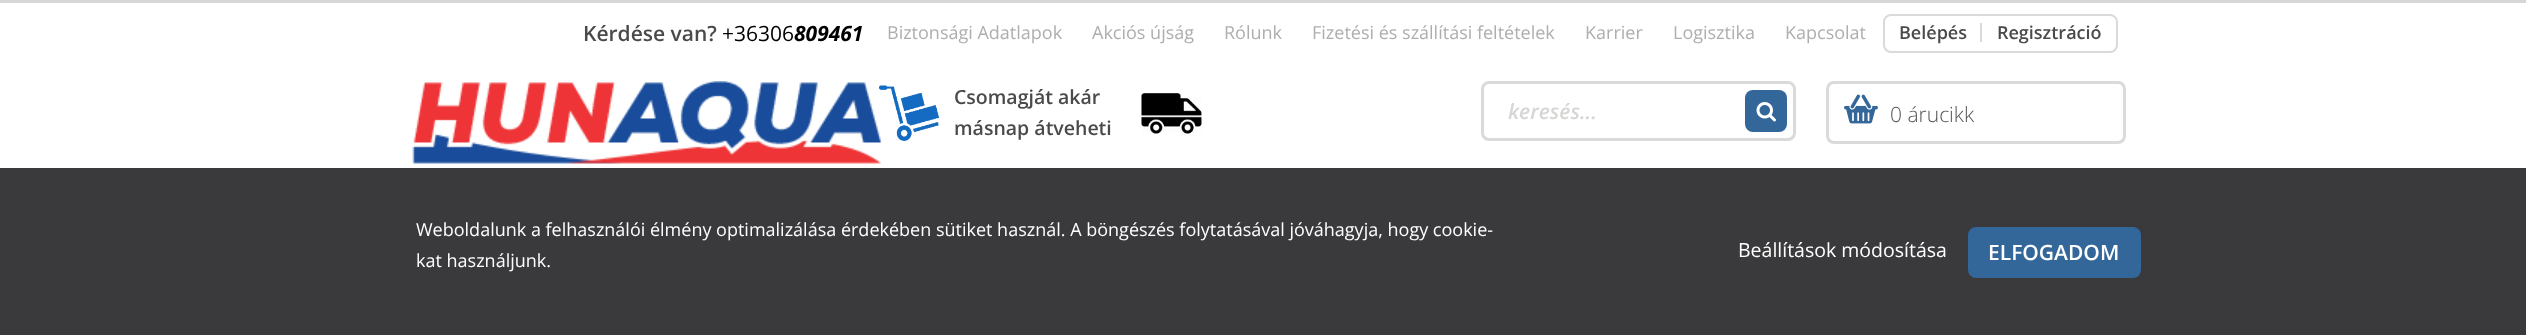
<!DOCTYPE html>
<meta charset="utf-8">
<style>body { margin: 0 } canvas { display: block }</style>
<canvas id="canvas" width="2526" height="335"></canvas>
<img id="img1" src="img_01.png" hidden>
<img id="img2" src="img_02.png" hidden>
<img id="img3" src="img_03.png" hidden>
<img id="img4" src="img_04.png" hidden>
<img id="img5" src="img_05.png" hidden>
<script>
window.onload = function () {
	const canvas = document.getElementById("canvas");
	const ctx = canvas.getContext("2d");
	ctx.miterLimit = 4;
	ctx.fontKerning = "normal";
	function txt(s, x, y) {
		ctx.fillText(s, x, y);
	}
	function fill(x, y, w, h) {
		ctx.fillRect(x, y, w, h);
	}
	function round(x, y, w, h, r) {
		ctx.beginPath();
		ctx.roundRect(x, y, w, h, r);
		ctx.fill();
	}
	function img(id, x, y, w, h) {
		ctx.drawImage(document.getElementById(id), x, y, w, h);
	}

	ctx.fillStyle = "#FFFFFF";
	fill(0, 0, 2526, 335);
	ctx.fillStyle = "#D7D7D7";
	fill(0, 0, 2526, 3);
	ctx.beginPath();
	ctx.roundRect(1884, 15, 233, 37, 7);
	ctx.strokeStyle = "#DADADA";
	ctx.lineWidth = 2;
	ctx.stroke();
	ctx.fillStyle = "#DADADA";
	fill(1980, 23, 2, 19);
	img("img1", 412, 81, 469, 83);
	img("img2", 879, 85, 60, 56);
	img("img3", 1141, 93, 61, 41);
	ctx.beginPath();
	ctx.roundRect(1482.5, 82.5, 312, 57, 6.5);
	ctx.lineWidth = 3;
	ctx.stroke();
	ctx.fillStyle = "#336699";
	round(1745, 90, 42, 42, 8);
	img("img4", 1756, 102, 20, 20);
	ctx.beginPath();
	ctx.roundRect(1827.5, 82.5, 297, 60, 6.5);
	ctx.stroke();
	img("img5", 1844, 94, 34, 30);
	ctx.fillStyle = "#3A393B";
	fill(0, 168, 2526, 167);
	ctx.fillStyle = "#336699";
	ctx.beginPath();
	ctx.roundRect(1969.5, 228.5, 170, 48, 6.5);
	ctx.fill();
	ctx.strokeStyle = "#336699";
	ctx.stroke();
	ctx.font = "600 21px Open Sans";
	ctx.fillStyle = "#4A4A4A";
	txt("Kérdése van?", 583, 41);
	ctx.font = "21px Open Sans";
	ctx.fillStyle = "#000000";
	txt("+36306", 722, 41);
	ctx.font = "italic bold 21px Open Sans";
	txt("809461", 794, 41);
	ctx.font = "18px Open Sans";
	ctx.fillStyle = "#AEAEAD";
	txt("Biztonsági Adatlapok", 887, 39);
	txt("Akciós újság", 1092, 39);
	txt("Rólunk", 1224, 39);
	txt("Fizetési és szállítási feltételek", 1312, 39);
	txt("Karrier", 1585, 39);
	txt("Logisztika", 1673, 39);
	txt("Kapcsolat", 1785, 39);
	ctx.font = "600 18px Open Sans";
	ctx.fillStyle = "#4A4A4A";
	txt("Belépés", 1899, 39);
	txt("Regisztráció", 1997, 39);
	ctx.font = "600 19.5px Open Sans";
	txt("Csomagját akár", 954, 104);
	txt("másnap átveheti", 954, 135);
	ctx.font = "italic 600 21px Open Sans";
	ctx.fillStyle = "#D6D6D5";
	txt("keresés...", 1508, 119);
	ctx.font = "300 21px Open Sans";
	ctx.fillStyle = "#555555";
	txt("0 árucikk", 1890, 122);
	ctx.font = "18px Open Sans";
	ctx.fillStyle = "#FFFFFF";
	txt("Weboldalunk a felhasználói élmény optimalizálása érdekében sütiket használ. A böngészés folytatásával jóváhagyja, hogy cookie-", 416, 236);
	txt("kat használjunk.", 416, 267);
	ctx.font = "19.5px Open Sans";
	txt("Beállítások módosítása", 1738, 257);
	ctx.font = "600 21px Open Sans";
	txt("ELFOGADOM", 1988, 260);
};
</script>
